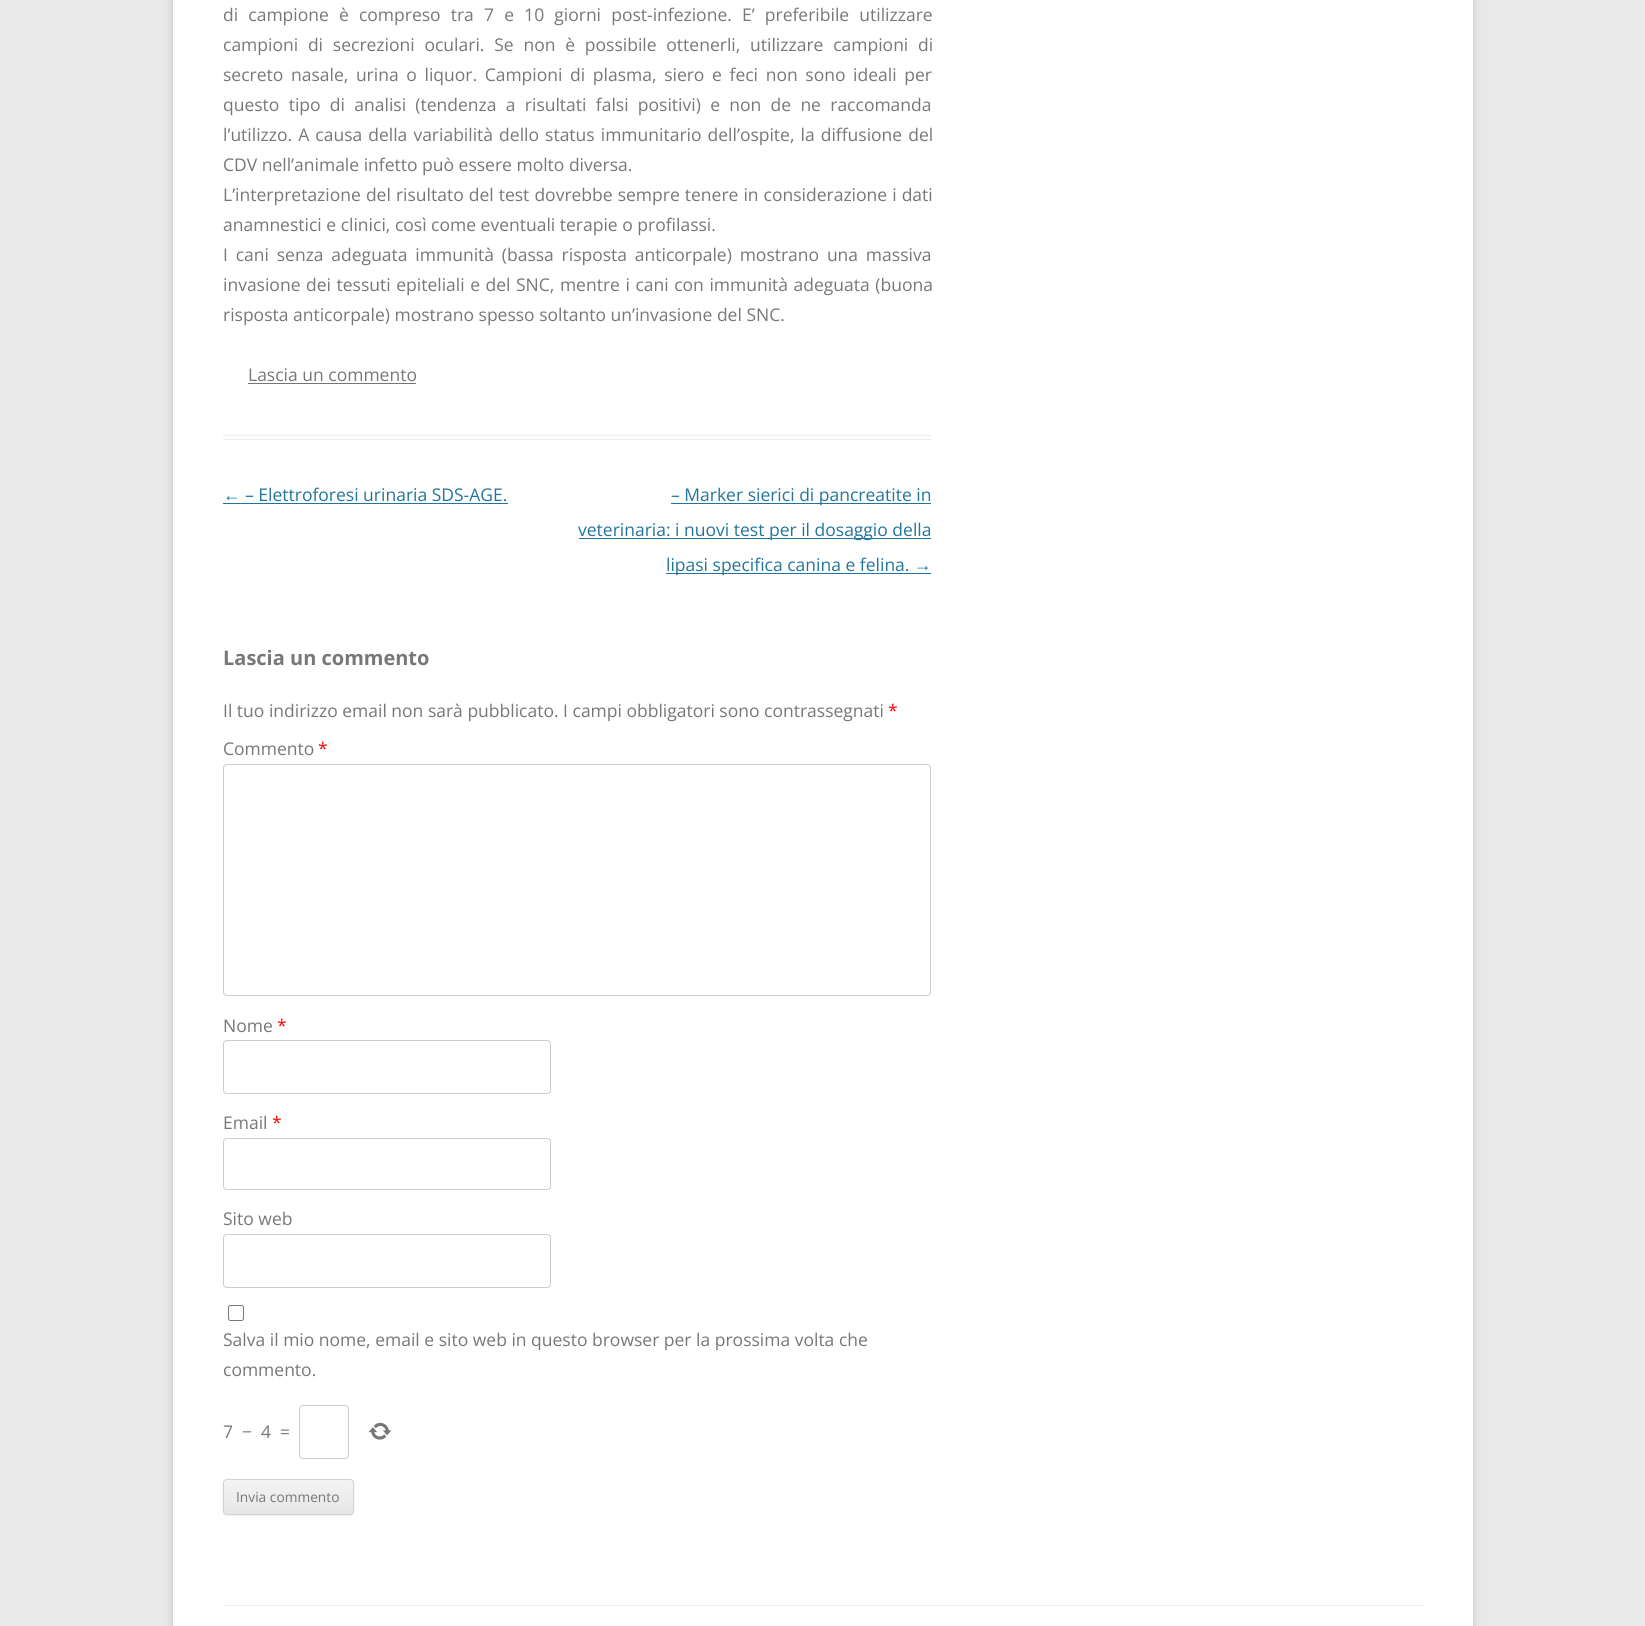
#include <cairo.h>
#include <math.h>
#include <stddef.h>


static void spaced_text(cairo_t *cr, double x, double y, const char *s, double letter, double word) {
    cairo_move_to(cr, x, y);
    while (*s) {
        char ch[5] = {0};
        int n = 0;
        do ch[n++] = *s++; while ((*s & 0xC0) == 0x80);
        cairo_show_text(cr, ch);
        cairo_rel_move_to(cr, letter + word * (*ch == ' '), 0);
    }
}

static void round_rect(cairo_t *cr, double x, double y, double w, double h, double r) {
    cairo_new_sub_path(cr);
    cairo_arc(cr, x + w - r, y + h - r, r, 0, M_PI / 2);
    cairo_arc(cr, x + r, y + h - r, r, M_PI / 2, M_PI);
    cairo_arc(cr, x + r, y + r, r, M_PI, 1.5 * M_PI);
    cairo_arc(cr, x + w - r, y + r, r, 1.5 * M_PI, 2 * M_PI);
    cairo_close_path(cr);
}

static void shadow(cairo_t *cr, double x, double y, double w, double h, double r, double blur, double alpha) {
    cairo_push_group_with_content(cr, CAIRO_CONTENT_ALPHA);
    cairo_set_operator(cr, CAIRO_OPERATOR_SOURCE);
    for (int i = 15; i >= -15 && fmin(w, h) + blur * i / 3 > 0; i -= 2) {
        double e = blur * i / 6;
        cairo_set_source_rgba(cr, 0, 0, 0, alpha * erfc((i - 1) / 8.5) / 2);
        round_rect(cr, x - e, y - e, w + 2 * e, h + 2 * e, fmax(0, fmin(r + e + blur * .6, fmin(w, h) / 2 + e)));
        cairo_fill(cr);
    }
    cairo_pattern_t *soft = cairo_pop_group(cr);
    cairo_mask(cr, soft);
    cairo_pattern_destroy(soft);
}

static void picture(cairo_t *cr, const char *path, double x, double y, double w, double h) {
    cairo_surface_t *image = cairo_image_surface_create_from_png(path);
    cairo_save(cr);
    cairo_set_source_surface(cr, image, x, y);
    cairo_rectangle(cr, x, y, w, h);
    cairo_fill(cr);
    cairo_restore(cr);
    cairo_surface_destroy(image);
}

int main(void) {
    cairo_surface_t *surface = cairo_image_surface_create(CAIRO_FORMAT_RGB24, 1645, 1626);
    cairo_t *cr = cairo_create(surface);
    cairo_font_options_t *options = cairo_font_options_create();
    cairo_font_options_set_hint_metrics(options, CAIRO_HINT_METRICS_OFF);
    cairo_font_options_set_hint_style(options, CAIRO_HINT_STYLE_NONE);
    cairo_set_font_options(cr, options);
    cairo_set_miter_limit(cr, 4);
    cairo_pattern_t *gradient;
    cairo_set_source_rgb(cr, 0.914, 0.914, 0.914);
    cairo_paint(cr);
    cairo_set_source_rgb(cr, 0.392, 0.392, 0.392);
    shadow(cr, 173, -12, 1300, 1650, 0, 4, 0.3);
    cairo_set_source_rgb(cr, 1, 1, 1);
    cairo_rectangle(cr, 173, 0, 1300, 1626);
    cairo_fill(cr);
    cairo_set_source_rgb(cr, 0.929, 0.929, 0.929);
    cairo_rectangle(cr, 223, 435, 708, 1);
    cairo_fill(cr);
    cairo_rectangle(cr, 223, 439, 708, 1);
    cairo_fill(cr);
    cairo_select_font_face(cr, "Open Sans", CAIRO_FONT_SLANT_NORMAL, CAIRO_FONT_WEIGHT_NORMAL);
    cairo_set_font_size(cr, 17.5);
    cairo_set_source_rgb(cr, 0.467, 0.467, 0.467);
    spaced_text(cr, 223, 21, "di campione è compreso tra 7 e 10 giorni post-infezione. E’ preferibile utilizzare", 0, 5.6);
    spaced_text(cr, 223, 51, "campioni di secrezioni oculari. Se non è possibile ottenerli, utilizzare campioni di", 0, 5.25);
    spaced_text(cr, 223, 81, "secreto nasale, urina o liquor. Campioni di plasma, siero e feci non sono ideali per", 0, 3.1);
    spaced_text(cr, 223, 111, "questo tipo di analisi (tendenza a risultati falsi positivi) e non de ne raccomanda", 0, 4.75);
    spaced_text(cr, 223, 141, "l’utilizzo. A causa della variabilità dello status immunitario dell’ospite, la diffusione del", 0, 1.5);
    cairo_move_to(cr, 223, 171);
    cairo_show_text(cr, "CDV nell’animale infetto può essere molto diversa.");
    spaced_text(cr, 223, 201, "L’interpretazione del risultato del test dovrebbe sempre tenere in considerazione i dati", 0, 0.5);
    cairo_move_to(cr, 223, 231);
    cairo_show_text(cr, "anamnestici e clinici, così come eventuali terapie o profilassi.");
    spaced_text(cr, 223, 261, "I cani senza adeguata immunità (bassa risposta anticorpale) mostrano una massiva", 0, 3.25);
    spaced_text(cr, 223, 291, "invasione dei tessuti epiteliali e del SNC, mentre i cani con immunità adeguata (buona", 0, 1);
    cairo_move_to(cr, 223, 321);
    cairo_show_text(cr, "risposta anticorpale) mostrano spesso soltanto un’invasione del SNC.");
    cairo_move_to(cr, 248, 381);
    cairo_show_text(cr, "Lascia un commento");
    cairo_set_source_rgb(cr, 0.459, 0.459, 0.459);
    cairo_rectangle(cr, 248, 383, 168, 1);
    cairo_fill(cr);
    cairo_select_font_face(cr, "Liberation Sans", CAIRO_FONT_SLANT_NORMAL, CAIRO_FONT_WEIGHT_NORMAL);
    cairo_set_source_rgb(cr, 0.129, 0.459, 0.608);
    cairo_move_to(cr, 223, 501);
    cairo_show_text(cr, "←");
    cairo_rectangle(cr, 223, 503, 285, 1);
    cairo_fill(cr);
    cairo_select_font_face(cr, "Open Sans", CAIRO_FONT_SLANT_NORMAL, CAIRO_FONT_WEIGHT_NORMAL);
    cairo_move_to(cr, 245, 501);
    cairo_show_text(cr, "– Elettroforesi urinaria SDS-AGE.");
    cairo_rectangle(cr, 671, 503, 260, 1);
    cairo_fill(cr);
    cairo_move_to(cr, 671, 501);
    cairo_show_text(cr, "– Marker sierici di pancreatite in");
    cairo_rectangle(cr, 579, 538, 352, 1);
    cairo_fill(cr);
    cairo_move_to(cr, 578, 536);
    cairo_show_text(cr, "veterinaria: i nuovi test per il dosaggio della");
    cairo_rectangle(cr, 666, 573, 265, 1);
    cairo_fill(cr);
    cairo_move_to(cr, 666, 571);
    cairo_show_text(cr, "lipasi specifica canina e felina.");
    cairo_select_font_face(cr, "Liberation Sans", CAIRO_FONT_SLANT_NORMAL, CAIRO_FONT_WEIGHT_NORMAL);
    cairo_move_to(cr, 914, 571);
    cairo_show_text(cr, "→");
    cairo_select_font_face(cr, "Open Sans", CAIRO_FONT_SLANT_NORMAL, CAIRO_FONT_WEIGHT_BOLD);
    cairo_set_font_size(cr, 20);
    cairo_set_source_rgb(cr, 0.467, 0.467, 0.467);
    cairo_move_to(cr, 223, 665);
    cairo_show_text(cr, "Lascia un commento");
    cairo_select_font_face(cr, "Open Sans", CAIRO_FONT_SLANT_NORMAL, CAIRO_FONT_WEIGHT_NORMAL);
    cairo_set_font_size(cr, 17.5);
    cairo_move_to(cr, 223, 717);
    cairo_show_text(cr, "Il tuo indirizzo email non sarà pubblicato. I campi obbligatori sono contrassegnati");
    cairo_set_source_rgb(cr, 1, 0, 0);
    cairo_move_to(cr, 888, 717);
    cairo_show_text(cr, "*");
    cairo_set_source_rgb(cr, 0.467, 0.467, 0.467);
    cairo_move_to(cr, 223, 755);
    cairo_show_text(cr, "Commento");
    cairo_set_source_rgb(cr, 1, 0, 0);
    cairo_move_to(cr, 318, 755);
    cairo_show_text(cr, "*");
    round_rect(cr, 223.5, 764.5, 707, 231, 3.5);
    cairo_set_source_rgb(cr, 0.8, 0.8, 0.8);
    cairo_set_line_width(cr, 1);
    cairo_stroke(cr);
    cairo_set_source_rgb(cr, 0.467, 0.467, 0.467);
    cairo_move_to(cr, 223, 1032);
    cairo_show_text(cr, "Nome");
    cairo_set_source_rgb(cr, 1, 0, 0);
    cairo_move_to(cr, 277, 1032);
    cairo_show_text(cr, "*");
    round_rect(cr, 223.5, 1040.5, 327, 53, 3.5);
    cairo_set_source_rgb(cr, 0.8, 0.8, 0.8);
    cairo_stroke(cr);
    cairo_set_source_rgb(cr, 0.467, 0.467, 0.467);
    cairo_move_to(cr, 223, 1129);
    cairo_show_text(cr, "Email");
    cairo_set_source_rgb(cr, 1, 0, 0);
    cairo_move_to(cr, 272, 1129);
    cairo_show_text(cr, "*");
    round_rect(cr, 223.5, 1138.5, 327, 51, 3.5);
    cairo_set_source_rgb(cr, 0.8, 0.8, 0.8);
    cairo_stroke(cr);
    cairo_set_source_rgb(cr, 0.467, 0.467, 0.467);
    cairo_move_to(cr, 223, 1225);
    cairo_show_text(cr, "Sito web");
    round_rect(cr, 223.5, 1234.5, 327, 53, 3.5);
    cairo_set_source_rgb(cr, 0.8, 0.8, 0.8);
    cairo_stroke(cr);
    round_rect(cr, 228.5, 1305.5, 15, 15, 2);
    cairo_set_source_rgb(cr, 0.463, 0.463, 0.463);
    cairo_stroke(cr);
    cairo_set_source_rgb(cr, 0.467, 0.467, 0.467);
    cairo_move_to(cr, 223, 1346);
    cairo_show_text(cr, "Salva il mio nome, email e sito web in questo browser per la prossima volta che");
    cairo_move_to(cr, 223, 1376);
    cairo_show_text(cr, "commento.");
    cairo_move_to(cr, 223, 1438);
    cairo_show_text(cr, "7");
    cairo_move_to(cr, 242, 1438);
    cairo_show_text(cr, "−");
    cairo_move_to(cr, 261, 1438);
    cairo_show_text(cr, "4");
    cairo_move_to(cr, 280, 1438);
    cairo_show_text(cr, "=");
    round_rect(cr, 299.5, 1405.5, 49, 53, 3.5);
    cairo_set_source_rgb(cr, 0.8, 0.8, 0.8);
    cairo_stroke(cr);
    picture(cr, "img1.png", 368, 1422, 24, 18);
    cairo_set_source_rgb(cr, 0.251, 0.251, 0.251);
    shadow(cr, 223, 1480, 131, 36, 4, 1, 0.1);
    cairo_save(cr);
    round_rect(cr, 223, 1479, 131, 36, 4);
    cairo_clip(cr);
    gradient = cairo_pattern_create_linear(288, 1480, 288, 1514);
    cairo_pattern_add_color_stop_rgba(gradient, 0, 0.957, 0.957, 0.957, 1);
    cairo_pattern_add_color_stop_rgba(gradient, 1, 0.902, 0.902, 0.902, 1);
    cairo_set_source(cr, gradient);
    cairo_pattern_destroy(gradient);
    cairo_rectangle(cr, 223, 1480, 131, 34);
    cairo_fill(cr);
    cairo_restore(cr);
    round_rect(cr, 223.5, 1479.5, 130, 35, 3.5);
    cairo_set_source_rgb(cr, 0.824, 0.824, 0.824);
    cairo_stroke(cr);
    cairo_set_font_size(cr, 13.75);
    cairo_set_source_rgb(cr, 0.467, 0.467, 0.467);
    cairo_move_to(cr, 236, 1502);
    cairo_show_text(cr, "Invia commento");
    cairo_set_source_rgb(cr, 0.929, 0.929, 0.929);
    cairo_rectangle(cr, 223, 1605, 1200, 1);
    cairo_fill(cr);
    cairo_surface_write_to_png(surface, "page.png");
    cairo_font_options_destroy(options);
    cairo_destroy(cr);
    cairo_surface_destroy(surface);
    return 0;
}
